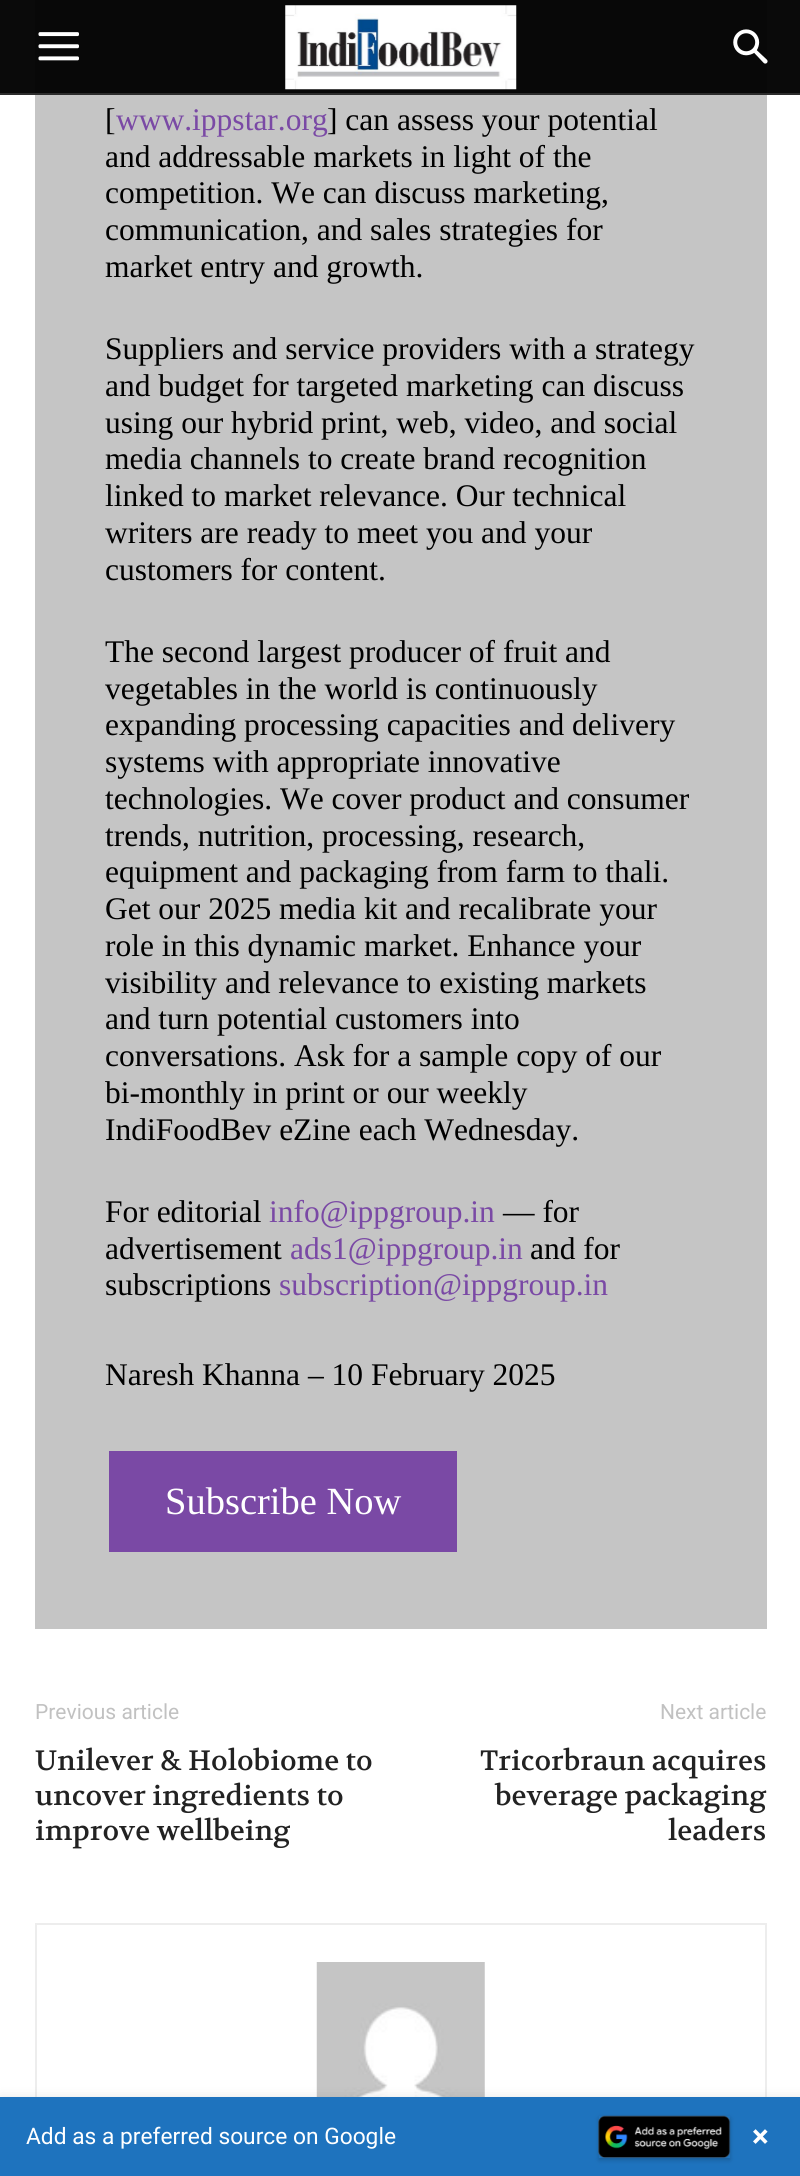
#include <cairo.h>
#include <math.h>
#include <stddef.h>


static void round_rect(cairo_t *cr, double x, double y, double w, double h, double r) {
    cairo_new_sub_path(cr);
    cairo_arc(cr, x + w - r, y + h - r, r, 0, M_PI / 2);
    cairo_arc(cr, x + r, y + h - r, r, M_PI / 2, M_PI);
    cairo_arc(cr, x + r, y + r, r, M_PI, 1.5 * M_PI);
    cairo_arc(cr, x + w - r, y + r, r, 1.5 * M_PI, 2 * M_PI);
    cairo_close_path(cr);
}

static void shadow(cairo_t *cr, double x, double y, double w, double h, double r, double blur, double alpha) {
    cairo_push_group_with_content(cr, CAIRO_CONTENT_ALPHA);
    cairo_set_operator(cr, CAIRO_OPERATOR_SOURCE);
    for (int i = 15; i >= -15 && fmin(w, h) + blur * i / 3 > 0; i -= 2) {
        double e = blur * i / 6;
        cairo_set_source_rgba(cr, 0, 0, 0, alpha * erfc((i - 1) / 8.5) / 2);
        round_rect(cr, x - e, y - e, w + 2 * e, h + 2 * e, fmax(0, fmin(r + e + blur * .6, fmin(w, h) / 2 + e)));
        cairo_fill(cr);
    }
    cairo_pattern_t *soft = cairo_pop_group(cr);
    cairo_mask(cr, soft);
    cairo_pattern_destroy(soft);
}

static void picture(cairo_t *cr, const char *path, double x, double y, double w, double h) {
    cairo_surface_t *image = cairo_image_surface_create_from_png(path);
    cairo_save(cr);
    cairo_set_source_surface(cr, image, x, y);
    cairo_rectangle(cr, x, y, w, h);
    cairo_fill(cr);
    cairo_restore(cr);
    cairo_surface_destroy(image);
}

int main(void) {
    cairo_surface_t *surface = cairo_image_surface_create(CAIRO_FORMAT_RGB24, 800, 2176);
    cairo_t *cr = cairo_create(surface);
    cairo_font_options_t *options = cairo_font_options_create();
    cairo_font_options_set_hint_metrics(options, CAIRO_HINT_METRICS_OFF);
    cairo_font_options_set_hint_style(options, CAIRO_HINT_STYLE_NONE);
    cairo_set_font_options(cr, options);
    cairo_set_miter_limit(cr, 4);
    cairo_set_source_rgb(cr, 1, 1, 1);
    cairo_paint(cr);
    cairo_set_source_rgb(cr, 0.773, 0.773, 0.773);
    cairo_rectangle(cr, 35, 0, 732, 1629);
    cairo_fill(cr);
    cairo_set_source_rgba(cr, 0, 0, 0, 0.8);
    cairo_rectangle(cr, 0, 0, 800, 93);
    cairo_fill(cr);
    cairo_set_source_rgb(cr, 0.867, 0.867, 0.867);
    cairo_rectangle(cr, 0, 93, 800, 2);
    cairo_fill(cr);
    cairo_set_source_rgba(cr, 0, 0, 0, 0.8);
    cairo_rectangle(cr, 0, 0, 800, 95);
    cairo_fill(cr);
    picture(cr, "img1.png", 38, 32, 41, 29);
    picture(cr, "img2.png", 285, 5, 232, 85);
    picture(cr, "img3.png", 733, 29, 35, 35);
    cairo_select_font_face(cr, "Liberation Serif", CAIRO_FONT_SLANT_NORMAL, CAIRO_FONT_WEIGHT_NORMAL);
    cairo_set_font_size(cr, 31.5);
    cairo_set_source_rgb(cr, 0, 0, 0);
    cairo_move_to(cr, 105, 130);
    cairo_show_text(cr, "[");
    cairo_set_source_rgb(cr, 0.478, 0.286, 0.647);
    cairo_move_to(cr, 116, 130);
    cairo_show_text(cr, "www.ippstar.org");
    cairo_set_source_rgb(cr, 0, 0, 0);
    cairo_move_to(cr, 327, 130);
    cairo_show_text(cr, "] can assess your potential");
    cairo_move_to(cr, 105, 167);
    cairo_show_text(cr, "and addressable markets in light of the");
    cairo_move_to(cr, 105, 203);
    cairo_show_text(cr, "competition. We can discuss marketing,");
    cairo_move_to(cr, 105, 240);
    cairo_show_text(cr, "communication, and sales strategies for");
    cairo_move_to(cr, 105, 277);
    cairo_show_text(cr, "market entry and growth.");
    cairo_move_to(cr, 105, 359);
    cairo_show_text(cr, "Suppliers and service providers with a strategy");
    cairo_move_to(cr, 105, 396);
    cairo_show_text(cr, "and budget for targeted marketing can discuss");
    cairo_move_to(cr, 105, 433);
    cairo_show_text(cr, "using our hybrid print, web, video, and social");
    cairo_move_to(cr, 105, 469);
    cairo_show_text(cr, "media channels to create brand recognition");
    cairo_move_to(cr, 105, 506);
    cairo_show_text(cr, "linked to market relevance. Our technical");
    cairo_move_to(cr, 105, 543);
    cairo_show_text(cr, "writers are ready to meet you and your");
    cairo_move_to(cr, 105, 580);
    cairo_show_text(cr, "customers for content.");
    cairo_move_to(cr, 105, 662);
    cairo_show_text(cr, "The second largest producer of fruit and");
    cairo_move_to(cr, 105, 699);
    cairo_show_text(cr, "vegetables in the world is continuously");
    cairo_move_to(cr, 105, 735);
    cairo_show_text(cr, "expanding processing capacities and delivery");
    cairo_move_to(cr, 105, 772);
    cairo_show_text(cr, "systems with appropriate innovative");
    cairo_move_to(cr, 105, 809);
    cairo_show_text(cr, "technologies. We cover product and consumer");
    cairo_move_to(cr, 105, 846);
    cairo_show_text(cr, "trends, nutrition, processing, research,");
    cairo_move_to(cr, 105, 882);
    cairo_show_text(cr, "equipment and packaging from farm to thali.");
    cairo_move_to(cr, 105, 919);
    cairo_show_text(cr, "Get our 2025 media kit and recalibrate your");
    cairo_move_to(cr, 105, 956);
    cairo_show_text(cr, "role in this dynamic market. Enhance your");
    cairo_move_to(cr, 105, 993);
    cairo_show_text(cr, "visibility and relevance to existing markets");
    cairo_move_to(cr, 105, 1029);
    cairo_show_text(cr, "and turn potential customers into");
    cairo_move_to(cr, 105, 1066);
    cairo_show_text(cr, "conversations. Ask for a sample copy of our");
    cairo_move_to(cr, 105, 1103);
    cairo_show_text(cr, "bi-monthly in print or our weekly");
    cairo_move_to(cr, 105, 1140);
    cairo_show_text(cr, "IndiFoodBev eZine each Wednesday.");
    cairo_move_to(cr, 105, 1222);
    cairo_show_text(cr, "For editorial");
    cairo_set_source_rgb(cr, 0.478, 0.286, 0.647);
    cairo_move_to(cr, 269, 1222);
    cairo_show_text(cr, "info@ippgroup.in");
    cairo_set_source_rgb(cr, 0, 0, 0);
    cairo_move_to(cr, 503, 1222);
    cairo_show_text(cr, "— for");
    cairo_move_to(cr, 105, 1259);
    cairo_show_text(cr, "advertisement");
    cairo_set_source_rgb(cr, 0.478, 0.286, 0.647);
    cairo_move_to(cr, 290, 1259);
    cairo_show_text(cr, "ads1@ippgroup.in");
    cairo_set_source_rgb(cr, 0, 0, 0);
    cairo_move_to(cr, 530, 1259);
    cairo_show_text(cr, "and for");
    cairo_move_to(cr, 105, 1295);
    cairo_show_text(cr, "subscriptions");
    cairo_set_source_rgb(cr, 0.478, 0.286, 0.647);
    cairo_move_to(cr, 279, 1295);
    cairo_show_text(cr, "subscription@ippgroup.in");
    cairo_set_source_rgb(cr, 0, 0, 0);
    cairo_move_to(cr, 105, 1385);
    cairo_show_text(cr, "Naresh Khanna – 10 February 2025");
    cairo_set_source_rgb(cr, 0.478, 0.286, 0.647);
    cairo_rectangle(cr, 109, 1451, 348, 101);
    cairo_fill(cr);
    cairo_set_font_size(cr, 38.5);
    cairo_set_source_rgb(cr, 1, 1, 1);
    cairo_move_to(cr, 165, 1514);
    cairo_show_text(cr, "Subscribe Now");
    cairo_select_font_face(cr, "Roboto", CAIRO_FONT_SLANT_NORMAL, CAIRO_FONT_WEIGHT_NORMAL);
    cairo_set_font_size(cr, 21);
    cairo_set_source_rgb(cr, 0.757, 0.757, 0.757);
    cairo_move_to(cr, 35, 1719);
    cairo_show_text(cr, "Previous article");
    cairo_select_font_face(cr, "Volkhov", CAIRO_FONT_SLANT_NORMAL, CAIRO_FONT_WEIGHT_NORMAL);
    cairo_set_font_size(cr, 28);
    cairo_set_source_rgb(cr, 0.133, 0.133, 0.133);
    cairo_move_to(cr, 35, 1770);
    cairo_show_text(cr, "Unilever & Holobiome to");
    cairo_move_to(cr, 35, 1805);
    cairo_show_text(cr, "uncover ingredients to");
    cairo_move_to(cr, 35, 1840);
    cairo_show_text(cr, "improve wellbeing");
    cairo_select_font_face(cr, "Roboto", CAIRO_FONT_SLANT_NORMAL, CAIRO_FONT_WEIGHT_NORMAL);
    cairo_set_font_size(cr, 21);
    cairo_set_source_rgb(cr, 0.757, 0.757, 0.757);
    cairo_move_to(cr, 660, 1719);
    cairo_show_text(cr, "Next article");
    cairo_select_font_face(cr, "Volkhov", CAIRO_FONT_SLANT_NORMAL, CAIRO_FONT_WEIGHT_NORMAL);
    cairo_set_font_size(cr, 28);
    cairo_set_source_rgb(cr, 0.133, 0.133, 0.133);
    cairo_move_to(cr, 480, 1770);
    cairo_show_text(cr, "Tricorbraun acquires");
    cairo_move_to(cr, 495, 1805);
    cairo_show_text(cr, "beverage packaging");
    cairo_move_to(cr, 668, 1840);
    cairo_show_text(cr, "leaders");
    cairo_rectangle(cr, 36, 1924, 730, 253);
    cairo_set_source_rgb(cr, 0.929, 0.929, 0.929);
    cairo_stroke(cr);
    picture(cr, "img4.png", 316, 1962, 169, 135);
    cairo_set_source_rgb(cr, 0, 0, 0);
    shadow(cr, 0, 2100, 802, 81, 0, 7, 0.15);
    cairo_set_source_rgb(cr, 0.118, 0.451, 0.745);
    cairo_rectangle(cr, 0, 2097, 800, 79);
    cairo_fill(cr);
    cairo_select_font_face(cr, "Roboto", CAIRO_FONT_SLANT_NORMAL, CAIRO_FONT_WEIGHT_NORMAL);
    cairo_set_font_size(cr, 22.75);
    cairo_set_source_rgb(cr, 1, 1, 1);
    cairo_move_to(cr, 26, 2144);
    cairo_show_text(cr, "Add as a preferred source on Google");
    cairo_save(cr);
    cairo_set_fill_rule(cr, CAIRO_FILL_RULE_EVEN_ODD);
    cairo_new_path(cr);
    cairo_move_to(cr, 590, 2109);
    cairo_line_to(cr, 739, 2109);
    cairo_line_to(cr, 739, 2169);
    cairo_line_to(cr, 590, 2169);
    cairo_close_path(cr);
    cairo_move_to(cr, 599, 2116);
    cairo_line_to(cr, 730, 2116);
    cairo_line_to(cr, 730, 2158);
    cairo_line_to(cr, 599, 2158);
    cairo_close_path(cr);
    cairo_clip(cr);
    cairo_set_source_rgb(cr, 0, 0, 0);
    shadow(cr, 599, 2118, 131, 42, 0, 2.5, 0.2);
    cairo_restore(cr);
    picture(cr, "img5.png", 598, 2115, 133, 43);
    cairo_select_font_face(cr, "Roboto", CAIRO_FONT_SLANT_NORMAL, CAIRO_FONT_WEIGHT_BOLD);
    cairo_set_font_size(cr, 31.5);
    cairo_move_to(cr, 752, 2147);
    cairo_show_text(cr, "×");
    cairo_surface_write_to_png(surface, "page.png");
    cairo_font_options_destroy(options);
    cairo_destroy(cr);
    cairo_surface_destroy(surface);
    return 0;
}
